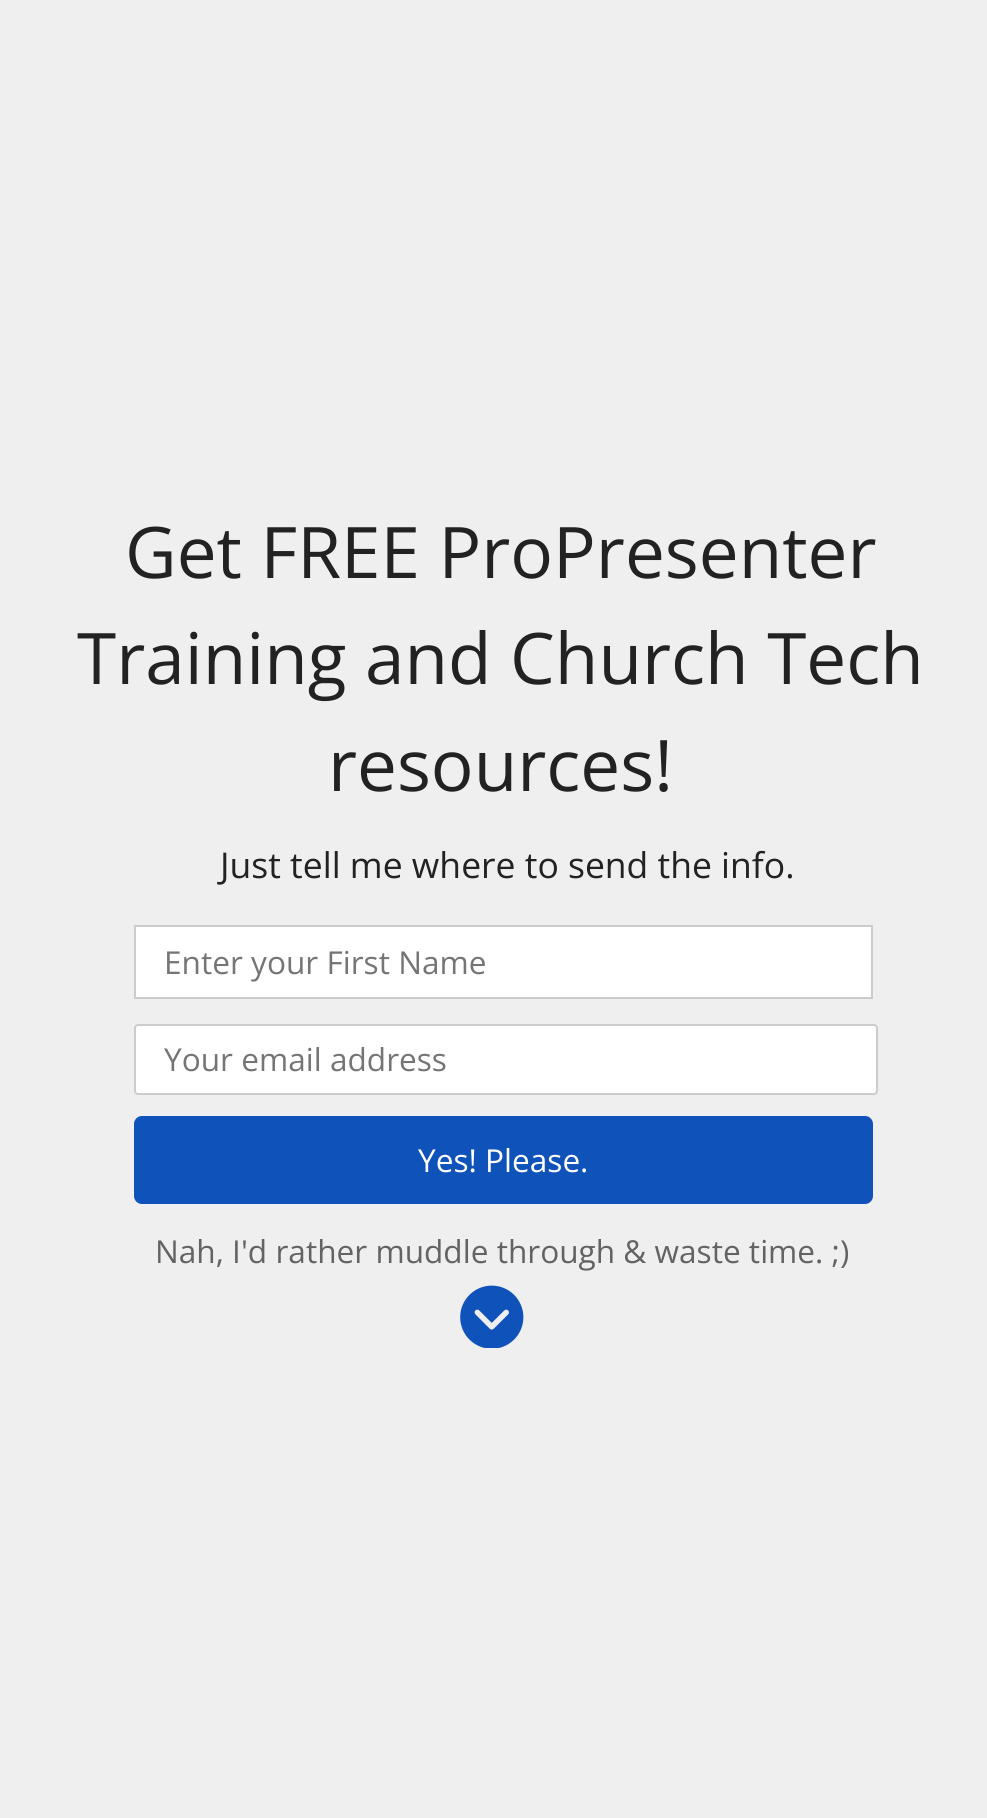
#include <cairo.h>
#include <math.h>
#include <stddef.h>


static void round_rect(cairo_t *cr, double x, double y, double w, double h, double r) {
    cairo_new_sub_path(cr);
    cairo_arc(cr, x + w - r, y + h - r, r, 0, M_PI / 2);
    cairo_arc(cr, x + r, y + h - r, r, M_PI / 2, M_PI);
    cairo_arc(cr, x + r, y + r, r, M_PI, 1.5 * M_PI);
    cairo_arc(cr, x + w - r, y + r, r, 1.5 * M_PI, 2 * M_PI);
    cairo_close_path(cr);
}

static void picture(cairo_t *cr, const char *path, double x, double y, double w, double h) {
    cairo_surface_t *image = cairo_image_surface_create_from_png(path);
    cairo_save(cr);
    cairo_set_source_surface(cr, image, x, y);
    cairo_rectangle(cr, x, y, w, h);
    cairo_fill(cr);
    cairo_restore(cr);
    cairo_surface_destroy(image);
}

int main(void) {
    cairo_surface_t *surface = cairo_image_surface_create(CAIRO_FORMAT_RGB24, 987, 1818);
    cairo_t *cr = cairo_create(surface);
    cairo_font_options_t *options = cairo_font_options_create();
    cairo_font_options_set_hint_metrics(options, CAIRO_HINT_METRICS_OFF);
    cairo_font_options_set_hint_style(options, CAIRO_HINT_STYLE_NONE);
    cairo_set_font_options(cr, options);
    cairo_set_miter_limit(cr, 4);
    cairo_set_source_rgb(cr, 0.937, 0.937, 0.937);
    cairo_paint(cr);
    cairo_select_font_face(cr, "Open Sans", CAIRO_FONT_SLANT_NORMAL, CAIRO_FONT_WEIGHT_NORMAL);
    cairo_set_font_size(cr, 71.1);
    cairo_set_source_rgb(cr, 0.133, 0.133, 0.133);
    cairo_move_to(cr, 125, 578);
    cairo_show_text(cr, "Get FREE ProPresenter");
    cairo_move_to(cr, 77, 684);
    cairo_show_text(cr, "Training and Church Tech");
    cairo_move_to(cr, 328, 791);
    cairo_show_text(cr, "resources!");
    cairo_set_font_size(cr, 35.5);
    cairo_move_to(cr, 220, 878);
    cairo_show_text(cr, "Just tell me where to send the info.");
    cairo_set_source_rgb(cr, 1, 1, 1);
    cairo_rectangle(cr, 135, 926, 737, 72);
    cairo_fill_preserve(cr);
    cairo_set_source_rgb(cr, 0.8, 0.8, 0.8);
    cairo_stroke(cr);
    cairo_set_font_size(cr, 31.6);
    cairo_set_source_rgb(cr, 0.459, 0.459, 0.459);
    cairo_move_to(cr, 164, 974);
    cairo_show_text(cr, "Enter your First Name");
    cairo_set_source_rgb(cr, 1, 1, 1);
    round_rect(cr, 135, 1025, 742, 69, 3);
    cairo_fill_preserve(cr);
    cairo_set_source_rgb(cr, 0.8, 0.8, 0.8);
    cairo_stroke(cr);
    cairo_set_source_rgb(cr, 0.459, 0.459, 0.459);
    cairo_move_to(cr, 164, 1071);
    cairo_show_text(cr, "Your email address");
    cairo_set_source_rgb(cr, 0.059, 0.322, 0.729);
    round_rect(cr, 134, 1116, 739, 88, 8);
    cairo_fill(cr);
    cairo_set_source_rgb(cr, 1, 1, 1);
    cairo_move_to(cr, 418, 1172);
    cairo_show_text(cr, "Yes! Please.");
    cairo_set_source_rgb(cr, 0.396, 0.384, 0.384);
    cairo_move_to(cr, 155, 1263);
    cairo_show_text(cr, "Nah, I'd rather muddle through & waste time. ;)");
    picture(cr, "img1.png", 460, 1285, 64, 63);
    cairo_surface_write_to_png(surface, "page.png");
    cairo_font_options_destroy(options);
    cairo_destroy(cr);
    cairo_surface_destroy(surface);
    return 0;
}
